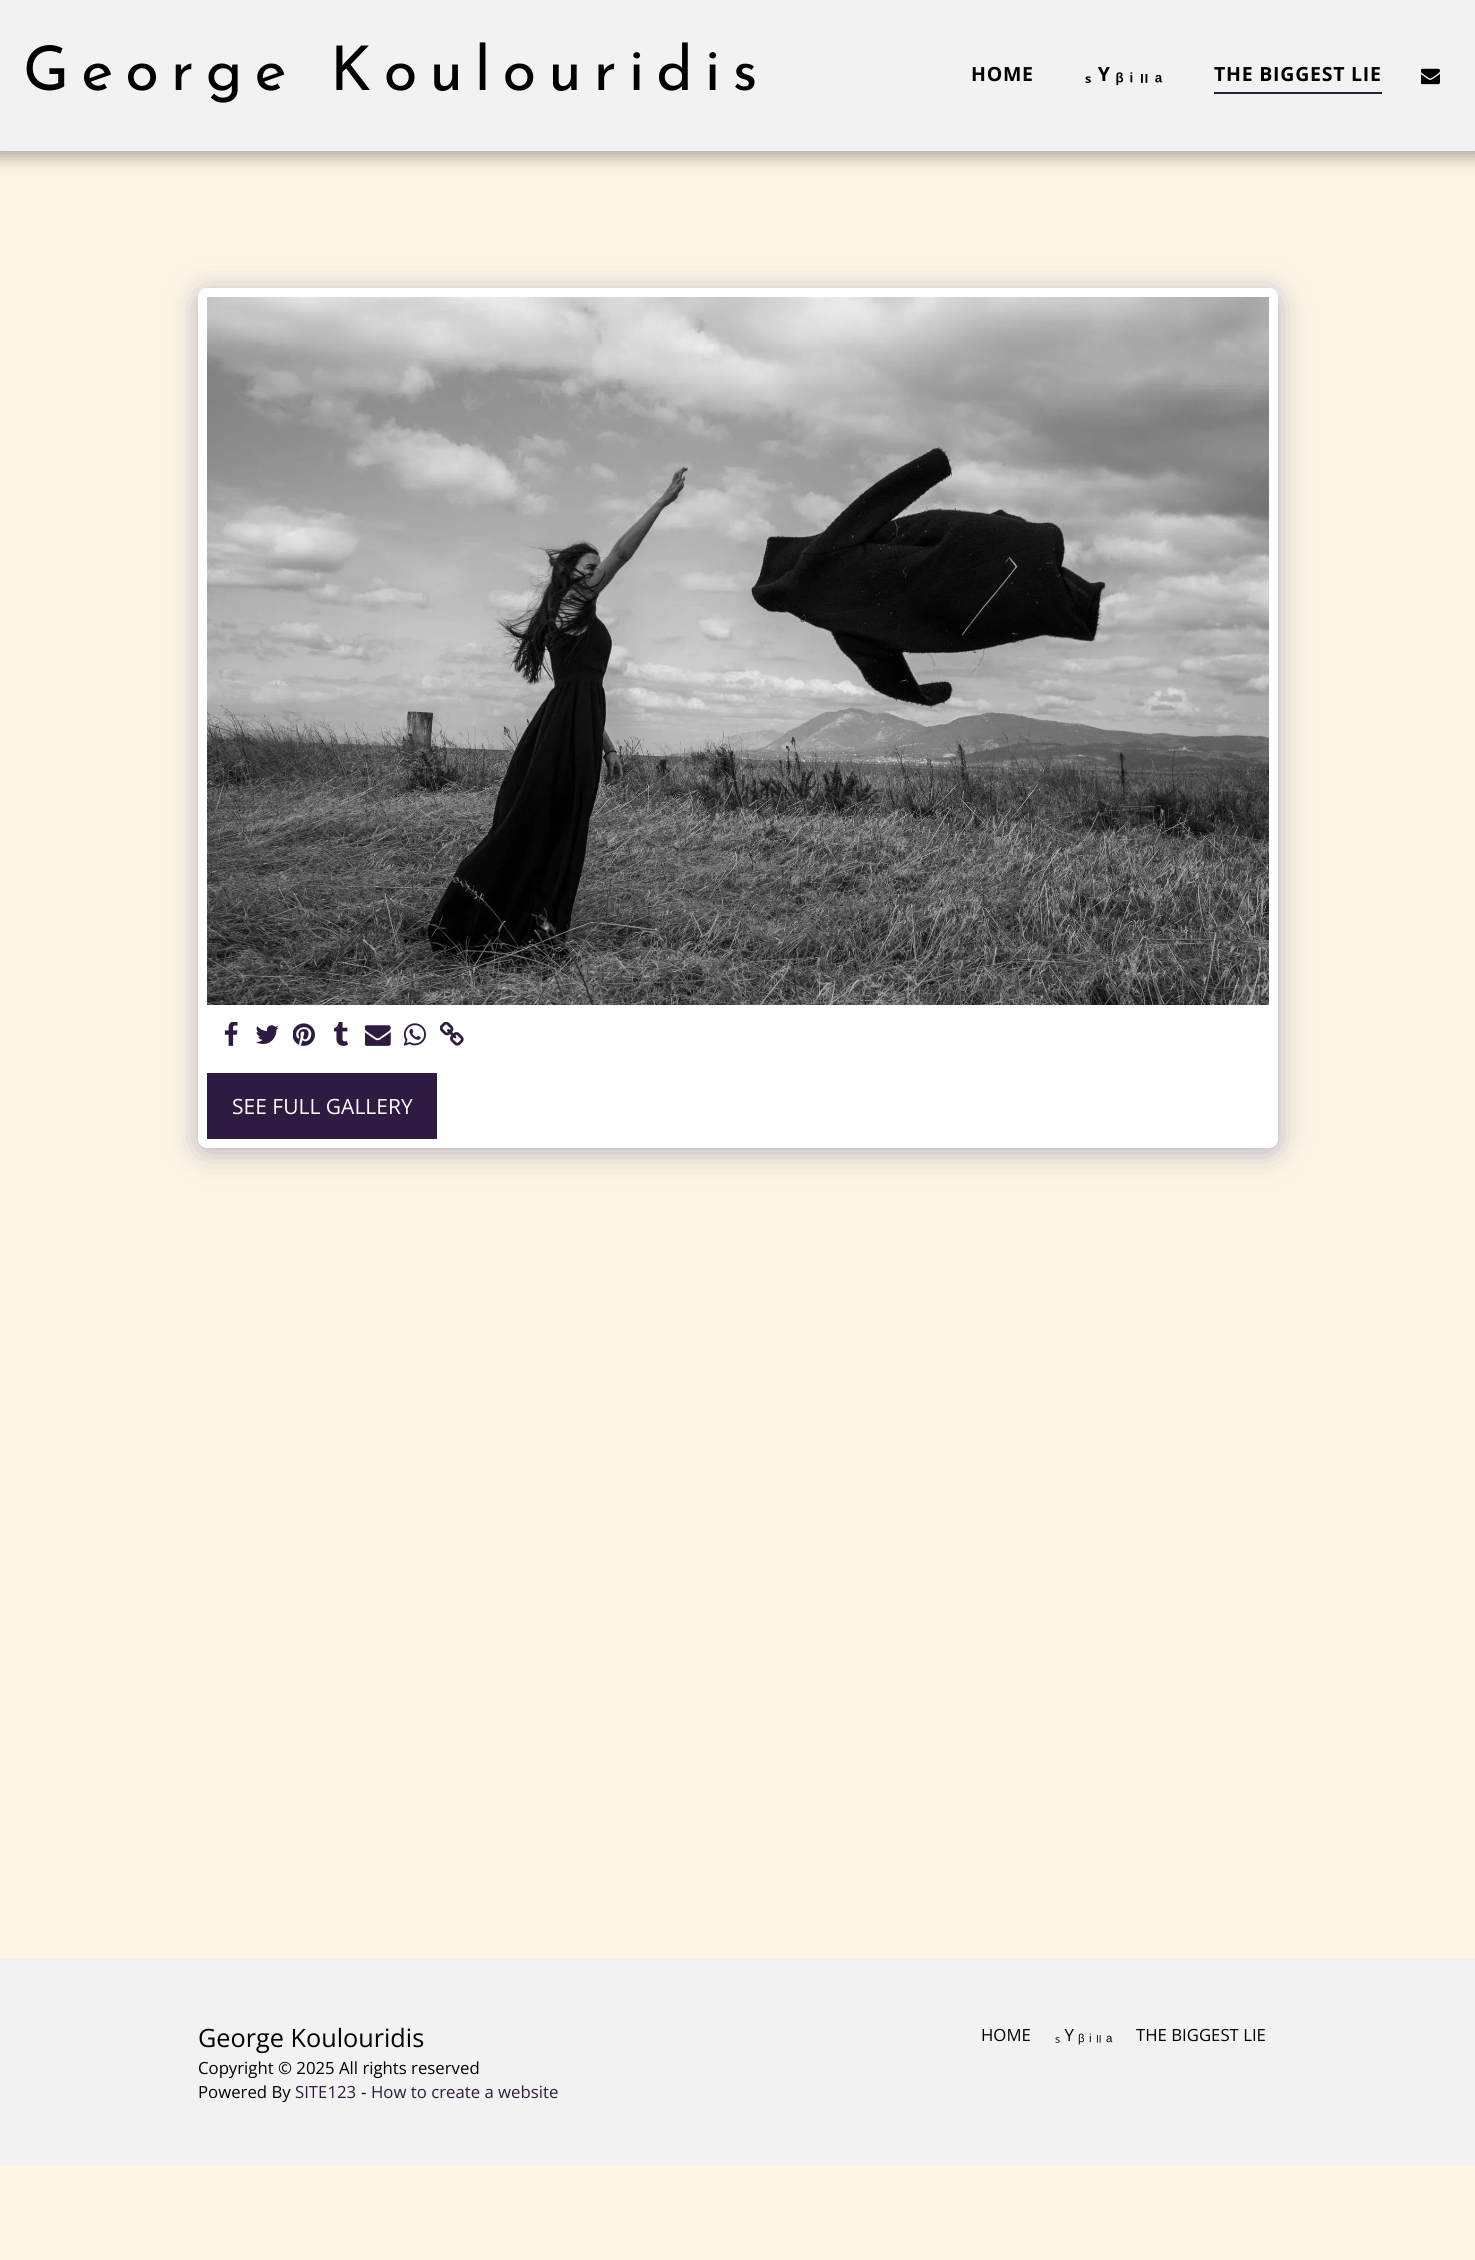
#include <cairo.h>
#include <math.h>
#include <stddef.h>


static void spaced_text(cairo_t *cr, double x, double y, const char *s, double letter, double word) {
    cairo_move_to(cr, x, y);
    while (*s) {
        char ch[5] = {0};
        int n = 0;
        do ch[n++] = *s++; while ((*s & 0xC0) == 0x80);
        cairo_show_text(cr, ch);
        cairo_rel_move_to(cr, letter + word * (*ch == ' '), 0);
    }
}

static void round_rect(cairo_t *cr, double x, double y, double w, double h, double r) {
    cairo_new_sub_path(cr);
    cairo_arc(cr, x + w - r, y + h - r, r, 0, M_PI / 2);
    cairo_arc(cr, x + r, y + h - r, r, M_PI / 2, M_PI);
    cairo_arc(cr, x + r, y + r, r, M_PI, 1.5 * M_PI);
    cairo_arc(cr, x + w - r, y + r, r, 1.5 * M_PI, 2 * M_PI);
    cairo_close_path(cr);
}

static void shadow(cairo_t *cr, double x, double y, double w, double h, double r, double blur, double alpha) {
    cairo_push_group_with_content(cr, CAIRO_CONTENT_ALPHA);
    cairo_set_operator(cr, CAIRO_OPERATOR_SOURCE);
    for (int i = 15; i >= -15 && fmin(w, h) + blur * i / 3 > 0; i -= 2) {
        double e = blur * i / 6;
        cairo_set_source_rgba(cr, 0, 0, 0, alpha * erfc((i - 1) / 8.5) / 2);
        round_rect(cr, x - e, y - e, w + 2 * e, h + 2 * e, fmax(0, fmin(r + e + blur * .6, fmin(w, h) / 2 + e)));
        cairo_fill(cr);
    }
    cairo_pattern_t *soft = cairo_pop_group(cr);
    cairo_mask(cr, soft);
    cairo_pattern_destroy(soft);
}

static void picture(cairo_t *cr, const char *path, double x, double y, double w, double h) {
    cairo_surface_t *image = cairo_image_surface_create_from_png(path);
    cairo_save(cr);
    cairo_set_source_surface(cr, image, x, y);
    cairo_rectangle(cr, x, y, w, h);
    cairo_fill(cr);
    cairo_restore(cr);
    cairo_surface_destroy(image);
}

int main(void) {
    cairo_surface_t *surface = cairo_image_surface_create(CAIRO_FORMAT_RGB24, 1475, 2260);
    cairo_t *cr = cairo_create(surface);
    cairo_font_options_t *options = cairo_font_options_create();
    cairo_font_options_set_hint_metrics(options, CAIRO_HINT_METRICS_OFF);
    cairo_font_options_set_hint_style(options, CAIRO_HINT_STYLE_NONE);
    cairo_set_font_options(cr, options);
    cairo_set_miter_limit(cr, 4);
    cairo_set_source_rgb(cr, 0.992, 0.961, 0.902);
    cairo_paint(cr);
    cairo_set_source_rgb(cr, 0, 0, 0);
    shadow(cr, -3, 0, 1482, 156, 0, 9, 0.35);
    cairo_set_source_rgb(cr, 0.949, 0.949, 0.949);
    cairo_rectangle(cr, 0, 0, 1475, 151);
    cairo_fill(cr);
    cairo_select_font_face(cr, "Josefin Sans", CAIRO_FONT_SLANT_NORMAL, CAIRO_FONT_WEIGHT_NORMAL);
    cairo_set_font_size(cr, 61.5);
    cairo_set_source_rgb(cr, 0, 0, 0);
    spaced_text(cr, 23, 90, "George Koulouridis", 12, 0);
    cairo_select_font_face(cr, "Open Sans", CAIRO_FONT_SLANT_NORMAL, CAIRO_FONT_WEIGHT_BOLD);
    cairo_set_font_size(cr, 19.5);
    spaced_text(cr, 971, 81, "HOME", 0.75, 0);
    spaced_text(cr, 1085, 81, "ₛ Y", 0.75, 0);
    cairo_select_font_face(cr, "Liberation Sans", CAIRO_FONT_SLANT_NORMAL, CAIRO_FONT_WEIGHT_BOLD);
    spaced_text(cr, 1116, 81, "ᵦ", 0.75, 0);
    spaced_text(cr, 1130, 81, "ᵢ", 0.75, 0);
    cairo_select_font_face(cr, "Open Sans", CAIRO_FONT_SLANT_NORMAL, CAIRO_FONT_WEIGHT_BOLD);
    spaced_text(cr, 1140, 81, "ₗₗ", 0.75, 0);
    cairo_select_font_face(cr, "Liberation Sans", CAIRO_FONT_SLANT_NORMAL, CAIRO_FONT_WEIGHT_BOLD);
    spaced_text(cr, 1155, 81, "ₐ", 0.75, 0);
    cairo_select_font_face(cr, "Open Sans", CAIRO_FONT_SLANT_NORMAL, CAIRO_FONT_WEIGHT_BOLD);
    spaced_text(cr, 1214, 81, "THE BIGGEST LIE", 0.75, 0);
    cairo_set_source_rgb(cr, 0.184, 0.106, 0.255);
    cairo_rectangle(cr, 1214, 92, 168, 2);
    cairo_fill(cr);
    picture(cr, "img1.png", 1421, 68, 19, 17);
    cairo_set_source_rgb(cr, 0.302, 0.247, 0.478);
    shadow(cr, 198, 293, 1080, 859, 9, 15, 0.4);
    cairo_set_source_rgb(cr, 1, 1, 1);
    round_rect(cr, 198, 288, 1080, 860, 9);
    cairo_fill(cr);
    picture(cr, "img2.png", 207, 297, 1062, 708);
    picture(cr, "img3.png", 224, 1022, 14, 24);
    picture(cr, "img4.png", 255, 1025, 24, 19);
    picture(cr, "img5.png", 293, 1023, 22, 23);
    picture(cr, "img6.png", 334, 1022, 14, 24);
    picture(cr, "img7.png", 365, 1025, 26, 21);
    picture(cr, "img8.png", 404, 1023, 22, 23);
    picture(cr, "img9.png", 440, 1022, 24, 24);
    cairo_set_source_rgb(cr, 0.184, 0.106, 0.255);
    cairo_rectangle(cr, 207, 1073, 230, 66);
    cairo_fill(cr);
    cairo_select_font_face(cr, "Open Sans", CAIRO_FONT_SLANT_NORMAL, CAIRO_FONT_WEIGHT_NORMAL);
    cairo_set_font_size(cr, 21);
    cairo_set_source_rgb(cr, 1, 1, 1);
    cairo_move_to(cr, 232, 1114);
    cairo_show_text(cr, "SEE FULL GALLERY");
    cairo_set_source_rgb(cr, 0.949, 0.949, 0.949);
    cairo_rectangle(cr, 0, 1959, 1475, 206);
    cairo_fill(cr);
    cairo_set_font_size(cr, 25.25);
    cairo_set_source_rgb(cr, 0, 0, 0);
    cairo_move_to(cr, 198, 2047);
    cairo_show_text(cr, "George Koulouridis");
    cairo_set_font_size(cr, 16.75);
    cairo_move_to(cr, 198, 2074);
    cairo_show_text(cr, "Copyright © 2025 All rights reserved");
    cairo_move_to(cr, 198, 2098);
    cairo_show_text(cr, "Powered By");
    cairo_set_source_rgb(cr, 0.184, 0.106, 0.255);
    cairo_move_to(cr, 295, 2098);
    cairo_show_text(cr, "SITE123");
    cairo_set_source_rgb(cr, 0, 0, 0);
    cairo_move_to(cr, 361, 2098);
    cairo_show_text(cr, "-");
    cairo_set_source_rgb(cr, 0.184, 0.106, 0.255);
    cairo_move_to(cr, 371, 2098);
    cairo_show_text(cr, "How to create a website");
    cairo_set_source_rgb(cr, 0, 0, 0);
    cairo_move_to(cr, 981, 2041);
    cairo_show_text(cr, "HOME");
    cairo_move_to(cr, 1055, 2041);
    cairo_show_text(cr, "ₛ Y");
    cairo_select_font_face(cr, "Liberation Sans", CAIRO_FONT_SLANT_NORMAL, CAIRO_FONT_WEIGHT_NORMAL);
    cairo_move_to(cr, 1078, 2041);
    cairo_show_text(cr, "ᵦ");
    cairo_move_to(cr, 1089, 2041);
    cairo_show_text(cr, "ᵢ");
    cairo_select_font_face(cr, "Open Sans", CAIRO_FONT_SLANT_NORMAL, CAIRO_FONT_WEIGHT_NORMAL);
    cairo_move_to(cr, 1096, 2041);
    cairo_show_text(cr, "ₗₗ");
    cairo_select_font_face(cr, "Liberation Sans", CAIRO_FONT_SLANT_NORMAL, CAIRO_FONT_WEIGHT_NORMAL);
    cairo_move_to(cr, 1106, 2041);
    cairo_show_text(cr, "ₐ");
    cairo_select_font_face(cr, "Open Sans", CAIRO_FONT_SLANT_NORMAL, CAIRO_FONT_WEIGHT_NORMAL);
    cairo_move_to(cr, 1136, 2041);
    cairo_show_text(cr, "THE BIGGEST LIE");
    cairo_surface_write_to_png(surface, "page.png");
    cairo_font_options_destroy(options);
    cairo_destroy(cr);
    cairo_surface_destroy(surface);
    return 0;
}
